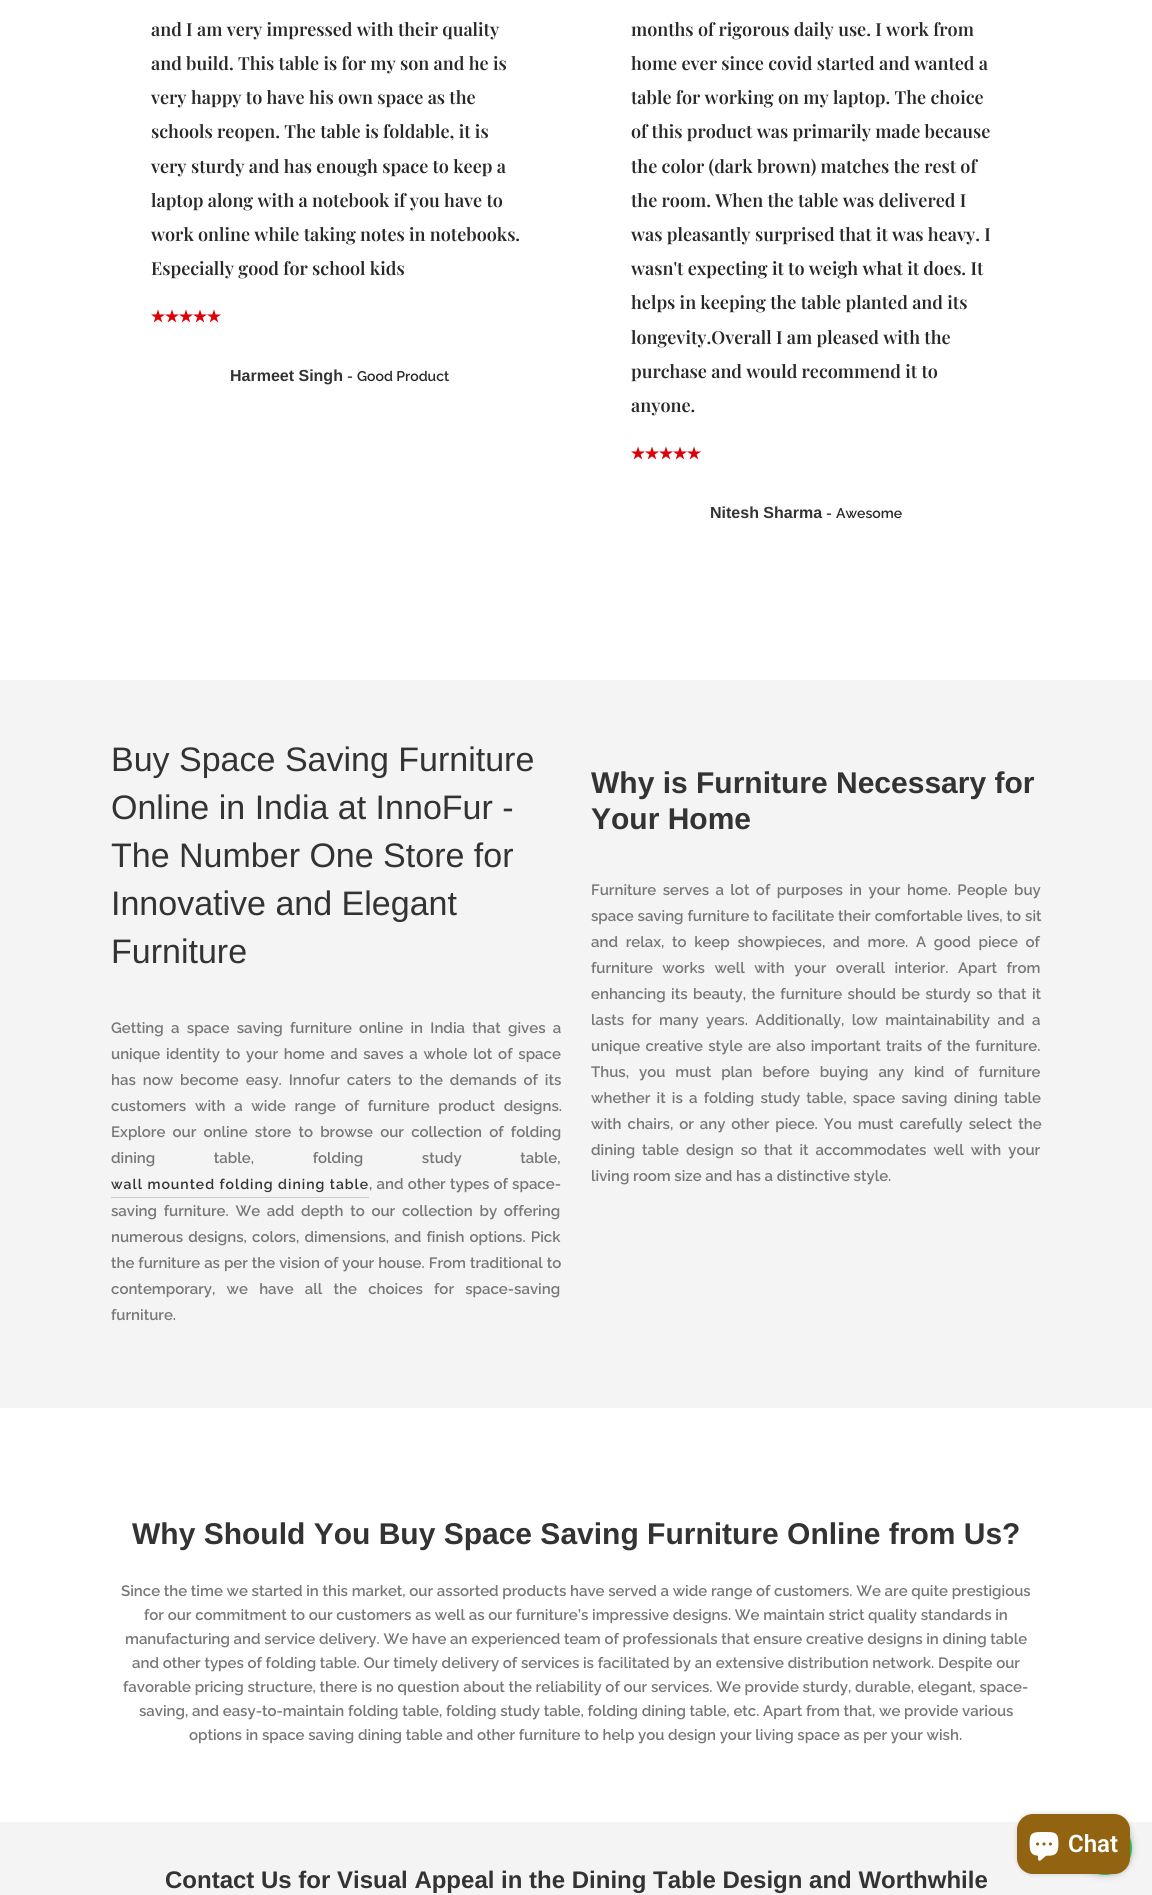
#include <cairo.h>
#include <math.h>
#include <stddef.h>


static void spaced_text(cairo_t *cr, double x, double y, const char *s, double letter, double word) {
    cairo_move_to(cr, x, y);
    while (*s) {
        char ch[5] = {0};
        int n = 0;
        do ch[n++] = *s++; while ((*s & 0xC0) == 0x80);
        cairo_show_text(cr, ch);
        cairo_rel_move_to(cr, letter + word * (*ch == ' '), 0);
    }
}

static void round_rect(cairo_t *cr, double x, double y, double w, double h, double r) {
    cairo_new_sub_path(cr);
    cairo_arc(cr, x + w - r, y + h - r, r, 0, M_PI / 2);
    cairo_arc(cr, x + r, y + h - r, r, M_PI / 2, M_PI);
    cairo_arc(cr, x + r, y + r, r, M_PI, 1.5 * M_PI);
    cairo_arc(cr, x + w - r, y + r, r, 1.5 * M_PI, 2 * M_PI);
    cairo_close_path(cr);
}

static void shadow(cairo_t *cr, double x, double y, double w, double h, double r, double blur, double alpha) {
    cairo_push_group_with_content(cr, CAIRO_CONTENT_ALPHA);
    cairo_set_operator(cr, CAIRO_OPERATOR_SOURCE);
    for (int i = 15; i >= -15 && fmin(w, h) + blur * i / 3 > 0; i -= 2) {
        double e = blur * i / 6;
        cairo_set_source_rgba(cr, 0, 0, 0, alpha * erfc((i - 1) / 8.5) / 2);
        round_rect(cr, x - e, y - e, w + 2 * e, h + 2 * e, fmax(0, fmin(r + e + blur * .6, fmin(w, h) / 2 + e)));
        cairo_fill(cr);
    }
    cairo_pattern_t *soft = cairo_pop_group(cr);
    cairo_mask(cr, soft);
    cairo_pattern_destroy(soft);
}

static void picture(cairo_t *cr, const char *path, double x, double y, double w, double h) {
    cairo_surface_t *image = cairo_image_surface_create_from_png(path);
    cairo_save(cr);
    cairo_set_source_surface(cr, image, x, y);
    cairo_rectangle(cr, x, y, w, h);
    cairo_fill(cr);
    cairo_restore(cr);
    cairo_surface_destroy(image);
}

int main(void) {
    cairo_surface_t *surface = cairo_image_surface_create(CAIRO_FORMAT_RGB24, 1152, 1895);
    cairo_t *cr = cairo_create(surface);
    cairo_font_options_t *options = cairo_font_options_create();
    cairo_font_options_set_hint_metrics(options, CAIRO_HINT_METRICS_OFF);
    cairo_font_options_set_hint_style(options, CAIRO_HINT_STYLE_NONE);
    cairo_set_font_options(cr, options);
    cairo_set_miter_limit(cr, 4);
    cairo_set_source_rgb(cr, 1, 1, 1);
    cairo_paint(cr);
    cairo_select_font_face(cr, "Playfair Display SemiBold", CAIRO_FONT_SLANT_NORMAL, CAIRO_FONT_WEIGHT_NORMAL);
    cairo_set_font_size(cr, 18);
    cairo_set_source_rgb(cr, 0.157, 0.157, 0.157);
    cairo_move_to(cr, 151, 36);
    cairo_show_text(cr, "and I am very impressed with their quality");
    cairo_move_to(cr, 151, 70);
    cairo_show_text(cr, "and build. This table is for my son and he is");
    cairo_move_to(cr, 151, 104);
    cairo_show_text(cr, "very happy to have his own space as the");
    cairo_move_to(cr, 151, 138);
    cairo_show_text(cr, "schools reopen. The table is foldable, it is");
    cairo_move_to(cr, 151, 173);
    cairo_show_text(cr, "very sturdy and has enough space to keep a");
    cairo_move_to(cr, 151, 207);
    cairo_show_text(cr, "laptop along with a notebook if you have to");
    cairo_move_to(cr, 151, 241);
    cairo_show_text(cr, "work online while taking notes in notebooks.");
    cairo_move_to(cr, 151, 275);
    cairo_show_text(cr, "Especially good for school kids");
    picture(cr, "img1.png", 151, 309, 14, 14);
    picture(cr, "img1.png", 165, 309, 14, 14);
    picture(cr, "img1.png", 179, 309, 14, 14);
    picture(cr, "img1.png", 193, 309, 14, 14);
    picture(cr, "img1.png", 207, 309, 14, 14);
    cairo_select_font_face(cr, "Liberation Sans", CAIRO_FONT_SLANT_NORMAL, CAIRO_FONT_WEIGHT_BOLD);
    cairo_set_font_size(cr, 16);
    cairo_set_source_rgb(cr, 0.2, 0.2, 0.2);
    cairo_move_to(cr, 230, 381);
    cairo_show_text(cr, "Harmeet Singh");
    cairo_select_font_face(cr, "Raleway SemiBold", CAIRO_FONT_SLANT_NORMAL, CAIRO_FONT_WEIGHT_NORMAL);
    cairo_set_font_size(cr, 14);
    cairo_set_source_rgb(cr, 0.157, 0.157, 0.157);
    cairo_move_to(cr, 347, 381);
    cairo_show_text(cr, "-");
    cairo_move_to(cr, 357, 381);
    cairo_show_text(cr, "Good Product");
    cairo_select_font_face(cr, "Playfair Display SemiBold", CAIRO_FONT_SLANT_NORMAL, CAIRO_FONT_WEIGHT_NORMAL);
    cairo_set_font_size(cr, 18);
    cairo_move_to(cr, 631, 36);
    cairo_show_text(cr, "months of rigorous daily use. I work from");
    cairo_move_to(cr, 631, 70);
    cairo_show_text(cr, "home ever since covid started and wanted a");
    cairo_move_to(cr, 631, 104);
    cairo_show_text(cr, "table for working on my laptop. The choice");
    cairo_move_to(cr, 631, 138);
    cairo_show_text(cr, "of this product was primarily made because");
    cairo_move_to(cr, 631, 173);
    cairo_show_text(cr, "the color (dark brown) matches the rest of");
    cairo_move_to(cr, 631, 207);
    cairo_show_text(cr, "the room. When the table was delivered I");
    cairo_move_to(cr, 631, 241);
    cairo_show_text(cr, "was pleasantly surprised that it was heavy. I");
    cairo_move_to(cr, 631, 275);
    cairo_show_text(cr, "wasn't expecting it to weigh what it does. It");
    cairo_move_to(cr, 631, 309);
    cairo_show_text(cr, "helps in keeping the table planted and its");
    cairo_move_to(cr, 631, 344);
    cairo_show_text(cr, "longevity.Overall I am pleased with the");
    cairo_move_to(cr, 631, 378);
    cairo_show_text(cr, "purchase and would recommend it to");
    cairo_move_to(cr, 631, 412);
    cairo_show_text(cr, "anyone.");
    picture(cr, "img1.png", 631, 446, 14, 14);
    picture(cr, "img1.png", 645, 446, 14, 14);
    picture(cr, "img1.png", 659, 446, 14, 14);
    picture(cr, "img1.png", 673, 446, 14, 14);
    picture(cr, "img1.png", 687, 446, 14, 14);
    cairo_select_font_face(cr, "Liberation Sans", CAIRO_FONT_SLANT_NORMAL, CAIRO_FONT_WEIGHT_BOLD);
    cairo_set_font_size(cr, 16);
    cairo_set_source_rgb(cr, 0.2, 0.2, 0.2);
    cairo_move_to(cr, 710, 518);
    cairo_show_text(cr, "Nitesh Sharma");
    cairo_select_font_face(cr, "Raleway SemiBold", CAIRO_FONT_SLANT_NORMAL, CAIRO_FONT_WEIGHT_NORMAL);
    cairo_set_font_size(cr, 14);
    cairo_set_source_rgb(cr, 0.157, 0.157, 0.157);
    cairo_move_to(cr, 826, 518);
    cairo_show_text(cr, "-");
    cairo_move_to(cr, 836, 518);
    cairo_show_text(cr, "Awesome");
    cairo_set_source_rgb(cr, 0.957, 0.957, 0.957);
    cairo_rectangle(cr, 0, 680, 1152, 728);
    cairo_fill(cr);
    cairo_select_font_face(cr, "Liberation Sans", CAIRO_FONT_SLANT_NORMAL, CAIRO_FONT_WEIGHT_NORMAL);
    cairo_set_font_size(cr, 34);
    cairo_set_source_rgb(cr, 0.2, 0.2, 0.2);
    cairo_move_to(cr, 111, 771);
    cairo_show_text(cr, "Buy Space Saving Furniture");
    cairo_move_to(cr, 111, 819);
    cairo_show_text(cr, "Online in India at InnoFur -");
    cairo_move_to(cr, 111, 867);
    cairo_show_text(cr, "The Number One Store for");
    cairo_move_to(cr, 111, 915);
    cairo_show_text(cr, "Innovative and Elegant");
    cairo_move_to(cr, 111, 963);
    cairo_show_text(cr, "Furniture");
    cairo_select_font_face(cr, "Raleway SemiBold", CAIRO_FONT_SLANT_NORMAL, CAIRO_FONT_WEIGHT_NORMAL);
    cairo_set_font_size(cr, 15);
    cairo_set_source_rgb(cr, 0.467, 0.467, 0.467);
    spaced_text(cr, 111, 1033, "Getting a space saving furniture online in India that gives a", 0, 3.6);
    spaced_text(cr, 111, 1059, "unique identity to your home and saves a whole lot of space", 0, 2.1);
    spaced_text(cr, 111, 1085, "has now become easy. Innofur caters to the demands of its", 0, 3.25);
    spaced_text(cr, 111, 1111, "customers with a wide range of furniture product designs.", 0, 5);
    spaced_text(cr, 111, 1137, "Explore our online store to browse our collection of folding", 0, 3.5);
    spaced_text(cr, 111, 1163, "dining table, folding study table,", 0, 55);
    cairo_set_source_rgb(cr, 0.8, 0.8, 0.8);
    cairo_rectangle(cr, 111, 1197, 258, 1);
    cairo_fill(cr);
    cairo_set_font_size(cr, 14);
    cairo_set_source_rgb(cr, 0.2, 0.2, 0.2);
    spaced_text(cr, 111, 1189, "wall mounted folding dining table", 1, 0);
    cairo_set_font_size(cr, 15);
    cairo_set_source_rgb(cr, 0.467, 0.467, 0.467);
    spaced_text(cr, 369, 1189, ", and other types of space-", 0, 0.5);
    spaced_text(cr, 111, 1216, "saving furniture. We add depth to our collection by offering", 0, 3);
    spaced_text(cr, 111, 1242, "numerous designs, colors, dimensions, and finish options. Pick", 0, 1.5);
    spaced_text(cr, 111, 1268, "the furniture as per the vision of your house. From traditional to", 0, 0.25);
    spaced_text(cr, 111, 1294, "contemporary, we have all the choices for space-saving", 0, 7.5);
    cairo_move_to(cr, 111, 1320);
    cairo_show_text(cr, "furniture.");
    cairo_select_font_face(cr, "Liberation Sans", CAIRO_FONT_SLANT_NORMAL, CAIRO_FONT_WEIGHT_BOLD);
    cairo_set_font_size(cr, 30);
    cairo_set_source_rgb(cr, 0.2, 0.2, 0.2);
    cairo_move_to(cr, 591, 793);
    cairo_show_text(cr, "Why is Furniture Necessary for");
    cairo_move_to(cr, 591, 829);
    cairo_show_text(cr, "Your Home");
    cairo_select_font_face(cr, "Raleway SemiBold", CAIRO_FONT_SLANT_NORMAL, CAIRO_FONT_WEIGHT_NORMAL);
    cairo_set_font_size(cr, 15);
    cairo_set_source_rgb(cr, 0.467, 0.467, 0.467);
    spaced_text(cr, 591, 895, "Furniture serves a lot of purposes in your home. People buy", 0, 2.75);
    spaced_text(cr, 591, 921, "space saving furniture to facilitate their comfortable lives, to sit", 0, 0.25);
    spaced_text(cr, 591, 947, "and relax, to keep showpieces, and more. A good piece of", 0, 4);
    spaced_text(cr, 591, 973, "furniture works well with your overall interior. Apart from", 0, 5.75);
    spaced_text(cr, 591, 999, "enhancing its beauty, the furniture should be sturdy so that it", 0, 1.75);
    spaced_text(cr, 591, 1025, "lasts for many years. Additionally, low maintainability and a", 0, 3.75);
    spaced_text(cr, 591, 1051, "unique creative style are also important traits of the furniture.", 0, 1.5);
    spaced_text(cr, 591, 1077, "Thus, you must plan before buying any kind of furniture", 0, 6.25);
    spaced_text(cr, 591, 1103, "whether it is a folding study table, space saving dining table", 0, 2.5);
    spaced_text(cr, 591, 1129, "with chairs, or any other piece. You must carefully select the", 0, 2.25);
    spaced_text(cr, 591, 1155, "dining table design so that it accommodates well with your", 0, 3.25);
    cairo_move_to(cr, 591, 1181);
    cairo_show_text(cr, "living room size and has a distinctive style.");
    cairo_select_font_face(cr, "Liberation Sans", CAIRO_FONT_SLANT_NORMAL, CAIRO_FONT_WEIGHT_BOLD);
    cairo_set_font_size(cr, 30);
    cairo_set_source_rgb(cr, 0.2, 0.2, 0.2);
    cairo_move_to(cr, 132, 1544);
    cairo_show_text(cr, "Why Should You Buy Space Saving Furniture Online from Us?");
    cairo_select_font_face(cr, "Raleway SemiBold", CAIRO_FONT_SLANT_NORMAL, CAIRO_FONT_WEIGHT_NORMAL);
    cairo_set_font_size(cr, 15);
    cairo_set_source_rgb(cr, 0.467, 0.467, 0.467);
    cairo_move_to(cr, 121, 1596);
    cairo_show_text(cr, "Since the time we started in this market, our assorted products have served a wide range of customers. We are quite prestigious");
    cairo_move_to(cr, 144, 1620);
    cairo_show_text(cr, "for our commitment to our customers as well as our furniture’s impressive designs. We maintain strict quality standards in");
    cairo_move_to(cr, 125, 1644);
    cairo_show_text(cr, "manufacturing and service delivery. We have an experienced team of professionals that ensure creative designs in dining table");
    cairo_move_to(cr, 132, 1668);
    cairo_show_text(cr, "and other types of folding table. Our timely delivery of services is facilitated by an extensive distribution network. Despite our");
    cairo_move_to(cr, 123, 1692);
    cairo_show_text(cr, "favorable pricing structure, there is no question about the reliability of our services. We provide sturdy, durable, elegant, space-");
    cairo_move_to(cr, 139, 1716);
    cairo_show_text(cr, "saving, and easy-to-maintain folding table, folding study table, folding dining table, etc. Apart from that, we provide various");
    cairo_move_to(cr, 189, 1740);
    cairo_show_text(cr, "options in space saving dining table and other furniture to help you design your living space as per your wish.");
    cairo_set_source_rgb(cr, 0.957, 0.957, 0.957);
    cairo_rectangle(cr, 0, 1822, 1152, 73);
    cairo_fill(cr);
    cairo_select_font_face(cr, "Liberation Sans", CAIRO_FONT_SLANT_NORMAL, CAIRO_FONT_WEIGHT_BOLD);
    cairo_set_font_size(cr, 24);
    cairo_set_source_rgb(cr, 0.2, 0.2, 0.2);
    cairo_move_to(cr, 165, 1888);
    cairo_show_text(cr, "Contact Us for Visual Appeal in the Dining Table Design and Worthwhile");
    cairo_set_source_rgb(cr, 0.761, 0.761, 0.761);
    shadow(cr, 1078, 1821, 54, 54, 27, 4, 1);
    cairo_set_source_rgb(cr, 0.133, 0.808, 0.353);
    cairo_arc(cr, 1105, 1848, 27, 0, 2 * M_PI);
    cairo_fill(cr);
    cairo_set_source_rgb(cr, 0, 0, 0);
    shadow(cr, 1017, 1814, 113, 60, 16, 2.5, 0.15);
    cairo_set_source_rgb(cr, 0.573, 0.392, 0.071);
    round_rect(cr, 1017, 1814, 113, 60, 16);
    cairo_fill(cr);
    picture(cr, "img2.png", 1029, 1832, 30, 29);
    cairo_select_font_face(cr, "Roboto SemiBold", CAIRO_FONT_SLANT_NORMAL, CAIRO_FONT_WEIGHT_NORMAL);
    cairo_set_source_rgb(cr, 1, 1, 1);
    cairo_move_to(cr, 1068, 1852);
    cairo_show_text(cr, "Chat");
    cairo_surface_write_to_png(surface, "page.png");
    cairo_font_options_destroy(options);
    cairo_destroy(cr);
    cairo_surface_destroy(surface);
    return 0;
}
